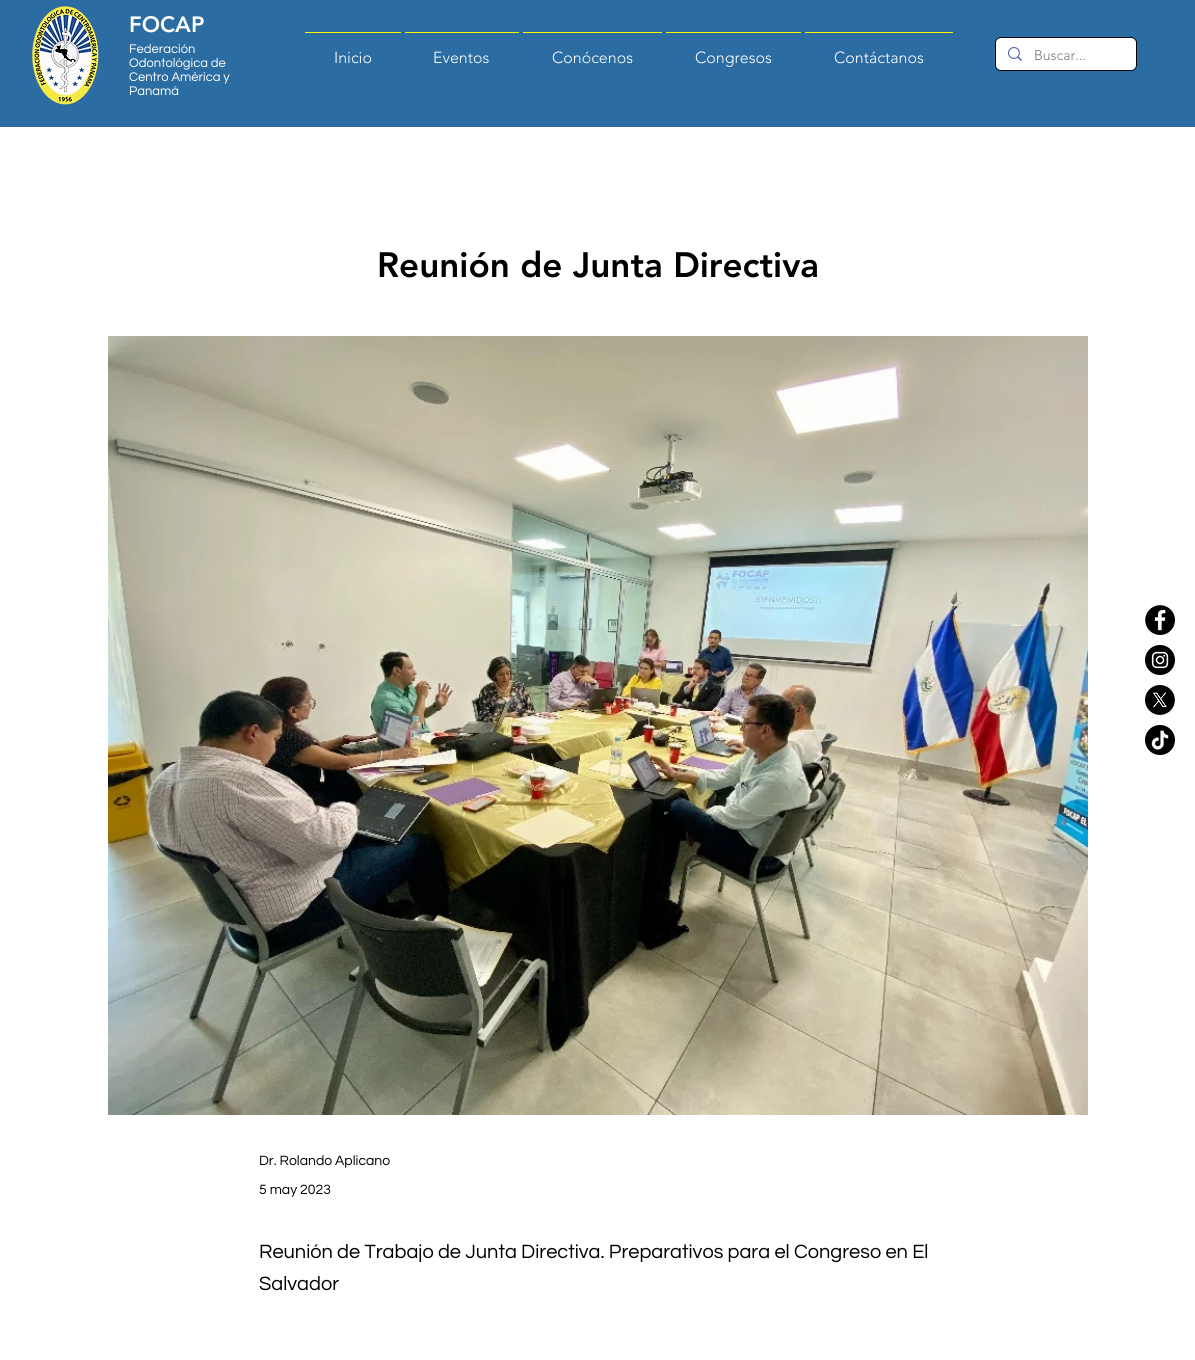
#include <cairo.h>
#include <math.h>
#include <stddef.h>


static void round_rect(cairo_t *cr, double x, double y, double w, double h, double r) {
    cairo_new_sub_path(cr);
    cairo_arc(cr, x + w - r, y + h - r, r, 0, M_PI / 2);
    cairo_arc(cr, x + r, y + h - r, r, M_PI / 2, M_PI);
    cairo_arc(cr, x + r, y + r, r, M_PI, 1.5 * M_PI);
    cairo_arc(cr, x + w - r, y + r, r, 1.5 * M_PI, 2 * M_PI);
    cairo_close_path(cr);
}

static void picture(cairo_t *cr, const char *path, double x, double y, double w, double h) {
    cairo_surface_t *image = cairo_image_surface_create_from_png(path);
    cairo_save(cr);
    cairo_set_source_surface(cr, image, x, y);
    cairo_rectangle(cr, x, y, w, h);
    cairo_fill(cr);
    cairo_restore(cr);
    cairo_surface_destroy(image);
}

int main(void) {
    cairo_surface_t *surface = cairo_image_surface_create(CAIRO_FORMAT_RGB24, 1195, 1360);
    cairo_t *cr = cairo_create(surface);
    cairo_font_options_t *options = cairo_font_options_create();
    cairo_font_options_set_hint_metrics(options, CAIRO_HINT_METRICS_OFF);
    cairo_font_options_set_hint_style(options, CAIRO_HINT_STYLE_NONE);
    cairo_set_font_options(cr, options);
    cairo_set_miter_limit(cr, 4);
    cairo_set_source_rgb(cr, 1, 1, 1);
    cairo_paint(cr);
    cairo_set_source_rgb(cr, 0.169, 0.424, 0.639);
    cairo_rectangle(cr, 0, 0, 1195, 127);
    cairo_fill(cr);
    picture(cr, "img1.png", 32, 6, 67, 99);
    cairo_select_font_face(cr, "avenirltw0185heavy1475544 Black", CAIRO_FONT_SLANT_NORMAL, CAIRO_FONT_WEIGHT_NORMAL);
    cairo_set_font_size(cr, 22);
    cairo_set_source_rgb(cr, 1, 1, 1);
    cairo_move_to(cr, 129, 32);
    cairo_show_text(cr, "FOCAP");
    cairo_select_font_face(cr, "Questrial", CAIRO_FONT_SLANT_NORMAL, CAIRO_FONT_WEIGHT_NORMAL);
    cairo_set_font_size(cr, 13);
    cairo_move_to(cr, 129, 53);
    cairo_show_text(cr, "Federación");
    cairo_move_to(cr, 129, 67);
    cairo_show_text(cr, "Odontológica de");
    cairo_move_to(cr, 129, 81);
    cairo_show_text(cr, "Centro América y");
    cairo_move_to(cr, 129, 95);
    cairo_show_text(cr, "Panamá");
    cairo_set_source_rgb(cr, 0.984, 0.957, 0.016);
    cairo_rectangle(cr, 305, 32, 96, 1);
    cairo_fill(cr);
    cairo_select_font_face(cr, "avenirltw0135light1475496 Light", CAIRO_FONT_SLANT_NORMAL, CAIRO_FONT_WEIGHT_NORMAL);
    cairo_set_font_size(cr, 16);
    cairo_set_source_rgb(cr, 1, 1, 1);
    cairo_move_to(cr, 334, 63);
    cairo_show_text(cr, "Inicio");
    cairo_set_source_rgb(cr, 0.984, 0.957, 0.016);
    cairo_rectangle(cr, 405, 32, 114, 1);
    cairo_fill(cr);
    cairo_set_source_rgb(cr, 1, 1, 1);
    cairo_move_to(cr, 433, 63);
    cairo_show_text(cr, "Eventos");
    cairo_set_source_rgb(cr, 0.984, 0.957, 0.016);
    cairo_rectangle(cr, 523, 32, 139, 1);
    cairo_fill(cr);
    cairo_set_source_rgb(cr, 1, 1, 1);
    cairo_move_to(cr, 552, 63);
    cairo_show_text(cr, "Conócenos");
    cairo_set_source_rgb(cr, 0.984, 0.957, 0.016);
    cairo_rectangle(cr, 666, 32, 135, 1);
    cairo_fill(cr);
    cairo_set_source_rgb(cr, 1, 1, 1);
    cairo_move_to(cr, 695, 63);
    cairo_show_text(cr, "Congresos");
    cairo_set_source_rgb(cr, 0.984, 0.957, 0.016);
    cairo_rectangle(cr, 805, 32, 148, 1);
    cairo_fill(cr);
    cairo_set_source_rgb(cr, 1, 1, 1);
    cairo_move_to(cr, 834, 63);
    cairo_show_text(cr, "Contáctanos");
    round_rect(cr, 995.5, 37.5, 141, 33, 5.5);
    cairo_set_source_rgb(cr, 0, 0, 0);
    cairo_set_line_width(cr, 1);
    cairo_stroke(cr);
    cairo_set_source_rgb(cr, 1, 1, 1);
    round_rect(cr, 996, 38, 140, 32, 5);
    cairo_fill(cr);
    picture(cr, "img2.png", 1008, 47, 14, 14);
    cairo_set_font_size(cr, 14);
    cairo_set_source_rgb(cr, 0.471, 0.471, 0.471);
    cairo_move_to(cr, 1034, 60);
    cairo_show_text(cr, "Buscar...");
    cairo_select_font_face(cr, "avenirltw0185heavy1475544 Black", CAIRO_FONT_SLANT_NORMAL, CAIRO_FONT_WEIGHT_NORMAL);
    cairo_set_font_size(cr, 35);
    cairo_set_source_rgb(cr, 0, 0, 0);
    cairo_move_to(cr, 377, 277);
    cairo_show_text(cr, "Reunión de Junta Directiva");
    picture(cr, "img3.png", 108, 336, 980, 779);
    cairo_select_font_face(cr, "Questrial", CAIRO_FONT_SLANT_NORMAL, CAIRO_FONT_WEIGHT_NORMAL);
    cairo_set_font_size(cr, 14);
    cairo_move_to(cr, 259, 1165);
    cairo_show_text(cr, "Dr. Rolando Aplicano");
    cairo_move_to(cr, 259, 1194);
    cairo_show_text(cr, "5 may 2023");
    cairo_set_font_size(cr, 20);
    cairo_move_to(cr, 259, 1258);
    cairo_show_text(cr, "Reunión de Trabajo de Junta Directiva. Preparativos para el Congreso en El");
    cairo_move_to(cr, 259, 1290);
    cairo_show_text(cr, "Salvador");
    picture(cr, "img4.png", 1145, 605, 30, 30);
    picture(cr, "img5.png", 1145, 645, 30, 30);
    picture(cr, "img6.png", 1145, 685, 30, 30);
    picture(cr, "img7.png", 1145, 725, 30, 30);
    cairo_surface_write_to_png(surface, "page.png");
    cairo_font_options_destroy(options);
    cairo_destroy(cr);
    cairo_surface_destroy(surface);
    return 0;
}
